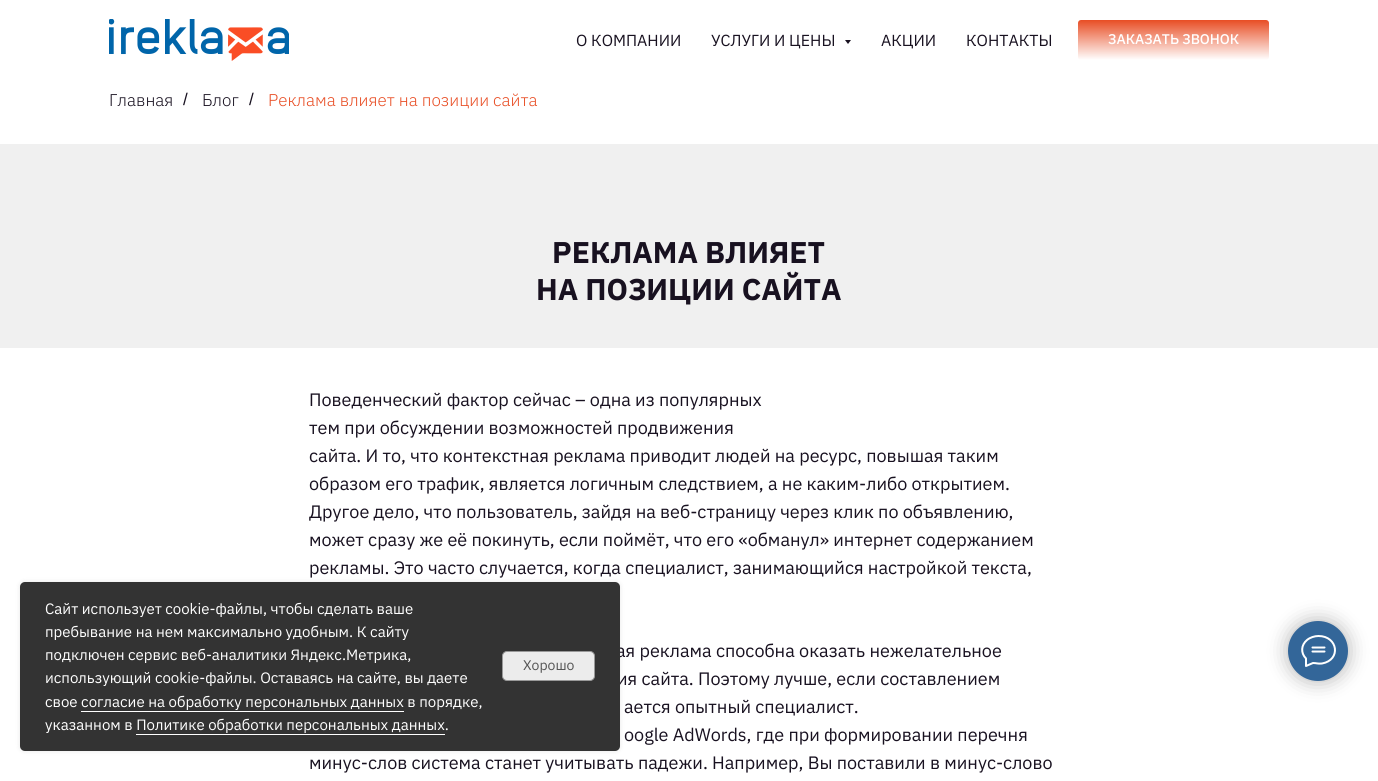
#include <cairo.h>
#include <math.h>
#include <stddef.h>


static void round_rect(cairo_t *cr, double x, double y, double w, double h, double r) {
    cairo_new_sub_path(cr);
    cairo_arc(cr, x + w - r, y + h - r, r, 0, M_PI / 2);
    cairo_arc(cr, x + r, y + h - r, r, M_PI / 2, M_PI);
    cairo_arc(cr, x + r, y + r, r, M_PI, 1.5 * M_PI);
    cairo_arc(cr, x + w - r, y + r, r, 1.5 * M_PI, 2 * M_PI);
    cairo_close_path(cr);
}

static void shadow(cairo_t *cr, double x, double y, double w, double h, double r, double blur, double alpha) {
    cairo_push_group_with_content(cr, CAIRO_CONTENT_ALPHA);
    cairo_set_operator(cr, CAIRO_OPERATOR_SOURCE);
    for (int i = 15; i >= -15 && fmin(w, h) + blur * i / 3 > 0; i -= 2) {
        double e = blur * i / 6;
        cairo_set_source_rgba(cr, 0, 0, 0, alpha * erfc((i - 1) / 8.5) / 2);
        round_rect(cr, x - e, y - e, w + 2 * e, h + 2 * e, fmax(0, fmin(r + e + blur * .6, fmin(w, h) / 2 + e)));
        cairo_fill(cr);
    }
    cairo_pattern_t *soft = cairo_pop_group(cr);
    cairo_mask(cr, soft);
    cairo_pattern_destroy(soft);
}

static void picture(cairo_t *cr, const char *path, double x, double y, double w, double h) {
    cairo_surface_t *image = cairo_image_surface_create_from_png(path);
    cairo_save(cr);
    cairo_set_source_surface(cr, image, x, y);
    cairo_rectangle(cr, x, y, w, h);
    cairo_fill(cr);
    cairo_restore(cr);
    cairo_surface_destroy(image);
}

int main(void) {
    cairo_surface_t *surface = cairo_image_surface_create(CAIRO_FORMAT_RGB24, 1378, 781);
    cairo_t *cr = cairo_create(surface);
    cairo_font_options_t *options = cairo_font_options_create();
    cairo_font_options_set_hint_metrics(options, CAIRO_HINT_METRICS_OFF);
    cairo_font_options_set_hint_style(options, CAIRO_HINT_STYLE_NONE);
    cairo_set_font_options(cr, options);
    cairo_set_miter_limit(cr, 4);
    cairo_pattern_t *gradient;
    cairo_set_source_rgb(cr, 1, 1, 1);
    cairo_paint(cr);
    picture(cr, "img1.png", 109, 19, 180, 42);
    cairo_select_font_face(cr, "IBM Plex Sans", CAIRO_FONT_SLANT_NORMAL, CAIRO_FONT_WEIGHT_NORMAL);
    cairo_set_font_size(cr, 16);
    cairo_set_source_rgb(cr, 0.094, 0.067, 0.125);
    cairo_move_to(cr, 576, 46);
    cairo_show_text(cr, "О КОМПАНИИ");
    cairo_move_to(cr, 711, 46);
    cairo_show_text(cr, "УСЛУГИ И ЦЕНЫ");
    cairo_new_path(cr);
    cairo_move_to(cr, 845, 40);
    cairo_line_to(cr, 851, 40);
    cairo_line_to(cr, 848, 44);
    cairo_close_path(cr);
    cairo_fill(cr);
    cairo_move_to(cr, 881, 46);
    cairo_show_text(cr, "АКЦИИ");
    cairo_move_to(cr, 966, 46);
    cairo_show_text(cr, "КОНТАКТЫ");
    gradient = cairo_pattern_create_linear(1174, 20, 1174, 60);
    cairo_pattern_add_color_stop_rgba(gradient, 0, 0.91, 0.302, 0.141, 1);
    cairo_pattern_add_color_stop_rgba(gradient, 1, 1, 1, 1, 1);
    cairo_set_source(cr, gradient);
    cairo_pattern_destroy(gradient);
    round_rect(cr, 1078, 20, 191, 40, 3);
    cairo_fill(cr);
    cairo_select_font_face(cr, "IBM Plex Sans Medium", CAIRO_FONT_SLANT_NORMAL, CAIRO_FONT_WEIGHT_NORMAL);
    cairo_set_font_size(cr, 14);
    cairo_set_source_rgb(cr, 1, 1, 1);
    cairo_move_to(cr, 1108, 44);
    cairo_show_text(cr, "ЗАКАЗАТЬ ЗВОНОК");
    cairo_select_font_face(cr, "IBM Plex Sans Light", CAIRO_FONT_SLANT_NORMAL, CAIRO_FONT_WEIGHT_NORMAL);
    cairo_set_font_size(cr, 17);
    cairo_set_source_rgb(cr, 0.094, 0.067, 0.125);
    cairo_move_to(cr, 109, 106);
    cairo_show_text(cr, "Главная");
    cairo_select_font_face(cr, "Liberation Sans", CAIRO_FONT_SLANT_NORMAL, CAIRO_FONT_WEIGHT_NORMAL);
    cairo_move_to(cr, 183, 105);
    cairo_show_text(cr, "/");
    cairo_select_font_face(cr, "IBM Plex Sans Light", CAIRO_FONT_SLANT_NORMAL, CAIRO_FONT_WEIGHT_NORMAL);
    cairo_move_to(cr, 202, 106);
    cairo_show_text(cr, "Блог");
    cairo_select_font_face(cr, "Liberation Sans", CAIRO_FONT_SLANT_NORMAL, CAIRO_FONT_WEIGHT_NORMAL);
    cairo_move_to(cr, 249, 105);
    cairo_show_text(cr, "/");
    cairo_select_font_face(cr, "IBM Plex Sans Light", CAIRO_FONT_SLANT_NORMAL, CAIRO_FONT_WEIGHT_NORMAL);
    cairo_set_source_rgb(cr, 0.91, 0.302, 0.141);
    cairo_move_to(cr, 268, 106);
    cairo_show_text(cr, "Реклама влияет на позиции сайта");
    cairo_set_source_rgb(cr, 0.941, 0.941, 0.941);
    cairo_rectangle(cr, 0, 144, 1378, 204);
    cairo_fill(cr);
    cairo_select_font_face(cr, "IBM Plex Sans", CAIRO_FONT_SLANT_NORMAL, CAIRO_FONT_WEIGHT_BOLD);
    cairo_set_font_size(cr, 30);
    cairo_set_source_rgb(cr, 0.094, 0.067, 0.125);
    cairo_move_to(cr, 552, 263);
    cairo_show_text(cr, "РЕКЛАМА ВЛИЯЕТ");
    cairo_move_to(cr, 536, 300);
    cairo_show_text(cr, "НА ПОЗИЦИИ САЙТА");
    cairo_select_font_face(cr, "IBM Plex Sans", CAIRO_FONT_SLANT_NORMAL, CAIRO_FONT_WEIGHT_NORMAL);
    cairo_set_font_size(cr, 18);
    cairo_move_to(cr, 309, 406);
    cairo_show_text(cr, "Поведенческий фактор сейчас – одна из популярных");
    cairo_move_to(cr, 309, 434);
    cairo_show_text(cr, "тем при обсуждении возможностей продвижения");
    cairo_move_to(cr, 309, 462);
    cairo_show_text(cr, "сайта. И то, что контекстная реклама приводит людей на ресурс, повышая таким");
    cairo_move_to(cr, 309, 490);
    cairo_show_text(cr, "образом его трафик, является логичным следствием, а не каким-либо открытием.");
    cairo_move_to(cr, 309, 518);
    cairo_show_text(cr, "Другое дело, что пользователь, зайдя на веб-страницу через клик по объявлению,");
    cairo_move_to(cr, 309, 546);
    cairo_show_text(cr, "может сразу же её покинуть, если поймёт, что его «обманул» интернет содержанием");
    cairo_move_to(cr, 309, 574);
    cairo_show_text(cr, "рекламы. Это часто случается, когда специалист, занимающийся настройкой текста,");
    cairo_move_to(cr, 616, 657);
    cairo_show_text(cr, "ая реклама способна оказать нежелательное");
    cairo_move_to(cr, 617, 685);
    cairo_show_text(cr, "ия сайта. Поэтому лучше, если составлением");
    cairo_move_to(cr, 624, 713);
    cairo_show_text(cr, "ается опытный специалист.");
    cairo_move_to(cr, 624, 741);
    cairo_show_text(cr, "oogle AdWords, где при формировании перечня");
    cairo_move_to(cr, 309, 769);
    cairo_show_text(cr, "минус-слов система станет учитывать падежи. Например, Вы поставили в минус-слово");
    cairo_set_source_rgb(cr, 0, 0, 0);
    shadow(cr, 20, 582, 600, 169, 5, 2.5, 0.1);
    cairo_set_source_rgb(cr, 0.2, 0.2, 0.2);
    round_rect(cr, 20, 582, 600, 169, 5);
    cairo_fill(cr);
    cairo_set_font_size(cr, 15);
    cairo_set_source_rgb(cr, 1, 1, 1);
    cairo_move_to(cr, 45, 614);
    cairo_show_text(cr, "Сайт использует cookie-файлы, чтобы сделать ваше");
    cairo_move_to(cr, 45, 637);
    cairo_show_text(cr, "пребывание на нем максимально удобным. К cайту");
    cairo_move_to(cr, 45, 660);
    cairo_show_text(cr, "подключен сервис веб-аналитики Яндекс.Метрика,");
    cairo_move_to(cr, 45, 683);
    cairo_show_text(cr, "использующий cookie-файлы. Оставаясь на сайте, вы даете");
    cairo_move_to(cr, 45, 707);
    cairo_show_text(cr, "свое согласие на обработку персональных данных в порядке,");
    cairo_rectangle(cr, 81, 711, 323, 1);
    cairo_fill(cr);
    cairo_move_to(cr, 45, 730);
    cairo_show_text(cr, "указанном в Политике обработки персональных данных.");
    cairo_rectangle(cr, 136, 734, 309, 1);
    cairo_fill(cr);
    cairo_set_source_rgb(cr, 0.922, 0.922, 0.922);
    round_rect(cr, 502.5, 651.5, 92, 29, 4.5);
    cairo_fill_preserve(cr);
    cairo_set_source_rgb(cr, 0.6, 0.6, 0.6);
    cairo_set_line_width(cr, 1);
    cairo_stroke(cr);
    cairo_set_font_size(cr, 14);
    cairo_set_source_rgb(cr, 0.333, 0.333, 0.333);
    cairo_move_to(cr, 523, 670);
    cairo_show_text(cr, "Хорошо");
    cairo_set_source_rgb(cr, 0, 0, 0);
    shadow(cr, 1288, 621, 60, 60, 30, 10, 0.3);
    cairo_set_source_rgb(cr, 0.2, 0.4, 0.6);
    cairo_arc(cr, 1318, 651, 30, 0, 2 * M_PI);
    cairo_fill(cr);
    cairo_new_path(cr);
    cairo_move_to(cr, 1312.5, 647.5);
    cairo_line_to(cr, 1324.5, 647.5);
    cairo_move_to(cr, 1312.5, 651.5);
    cairo_line_to(cr, 1324.5, 651.5);
    cairo_move_to(cr, 1306, 658.5);
    cairo_curve_to(cr, 1300.5, 653, 1301, 645, 1307, 640);
    cairo_curve_to(cr, 1310, 637.5, 1314.5, 636, 1318.5, 636);
    cairo_curve_to(cr, 1338, 636, 1341.5, 660, 1322, 663.5);
    cairo_curve_to(cr, 1318, 664, 1316.5, 663, 1313, 663);
    cairo_line_to(cr, 1306, 666);
    cairo_line_to(cr, 1306, 659);
    cairo_close_path(cr);
    cairo_set_source_rgb(cr, 1, 1, 1);
    cairo_set_line_width(cr, 2);
    cairo_set_line_cap(cr, CAIRO_LINE_CAP_ROUND);
    cairo_set_line_join(cr, CAIRO_LINE_JOIN_ROUND);
    cairo_stroke(cr);
    cairo_surface_write_to_png(surface, "page.png");
    cairo_font_options_destroy(options);
    cairo_destroy(cr);
    cairo_surface_destroy(surface);
    return 0;
}
